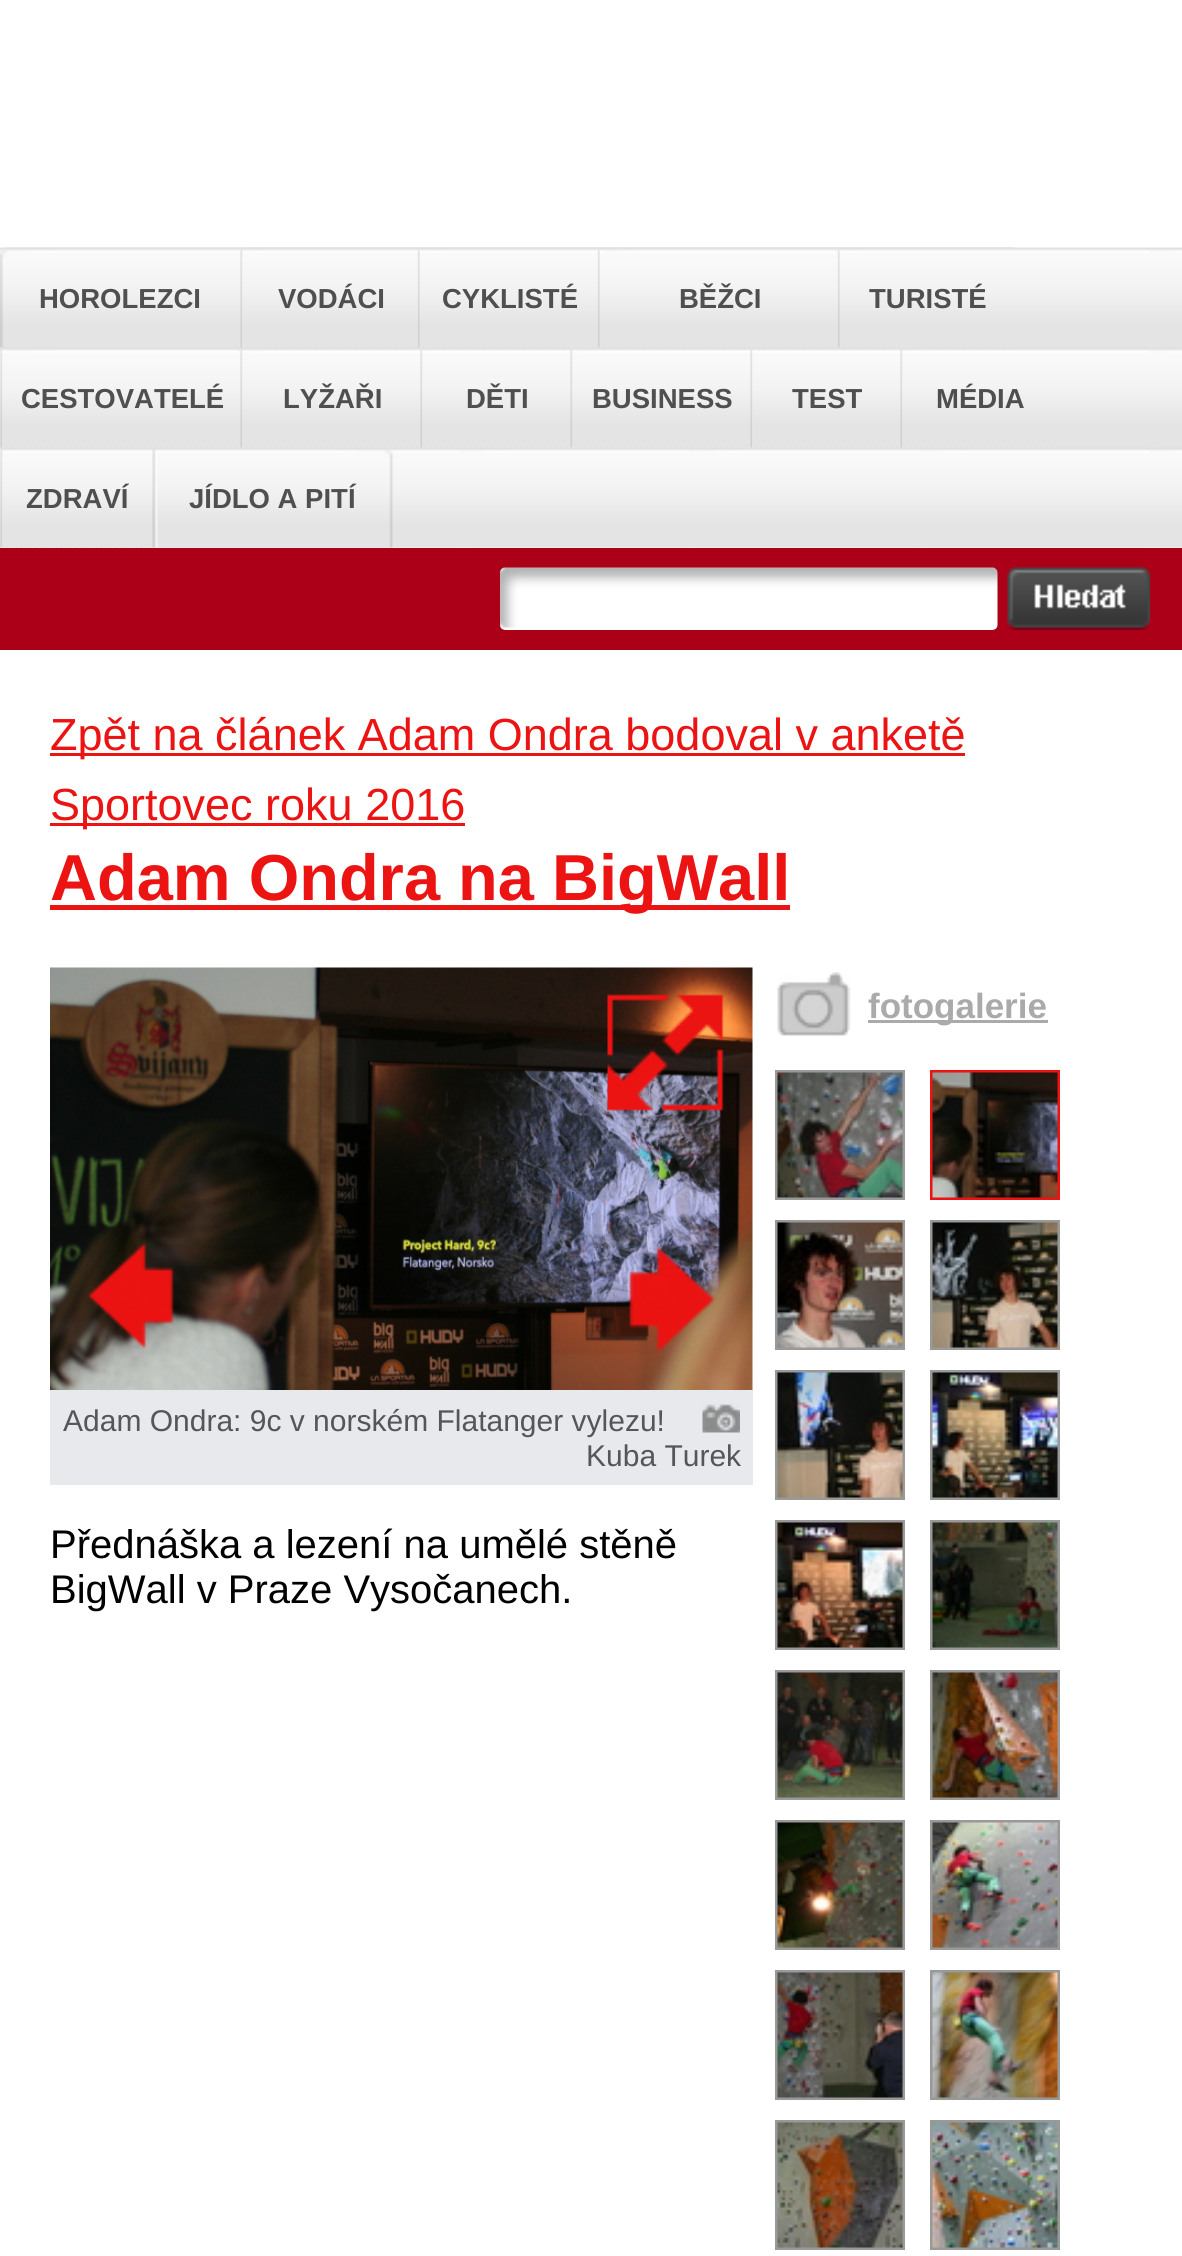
#include <cairo.h>
#include <math.h>
#include <stddef.h>


static void picture(cairo_t *cr, const char *path, double x, double y, double w, double h) {
    cairo_surface_t *image = cairo_image_surface_create_from_png(path);
    cairo_save(cr);
    cairo_set_source_surface(cr, image, x, y);
    cairo_rectangle(cr, x, y, w, h);
    cairo_fill(cr);
    cairo_restore(cr);
    cairo_surface_destroy(image);
}

int main(void) {
    cairo_surface_t *surface = cairo_image_surface_create(CAIRO_FORMAT_RGB24, 1182, 2256);
    cairo_t *cr = cairo_create(surface);
    cairo_font_options_t *options = cairo_font_options_create();
    cairo_font_options_set_hint_metrics(options, CAIRO_HINT_METRICS_OFF);
    cairo_font_options_set_hint_style(options, CAIRO_HINT_STYLE_NONE);
    cairo_set_font_options(cr, options);
    cairo_set_miter_limit(cr, 4);
    cairo_set_source_rgb(cr, 1, 1, 1);
    cairo_paint(cr);
    picture(cr, "img1.png", 0, 247, 1182, 301);
    picture(cr, "img2.png", 0, 247, 240, 101);
    cairo_select_font_face(cr, "Liberation Sans", CAIRO_FONT_SLANT_NORMAL, CAIRO_FONT_WEIGHT_BOLD);
    cairo_set_font_size(cr, 27.5);
    cairo_set_source_rgb(cr, 0.314, 0.31, 0.31);
    cairo_move_to(cr, 39, 308);
    cairo_show_text(cr, "HOROLEZCI");
    picture(cr, "img3.png", 240, 247, 178, 101);
    picture(cr, "img4.png", 242, 247, 178, 101);
    cairo_move_to(cr, 278, 308);
    cairo_show_text(cr, "VODÁCI");
    picture(cr, "img5.png", 417, 247, 181, 101);
    picture(cr, "img6.png", 420, 247, 180, 101);
    cairo_move_to(cr, 442, 308);
    cairo_show_text(cr, "CYKLISTÉ");
    picture(cr, "img7.png", 597, 247, 241, 101);
    picture(cr, "img8.png", 600, 247, 240, 101);
    cairo_move_to(cr, 679, 308);
    cairo_show_text(cr, "BĚŽCI");
    picture(cr, "img9.png", 837, 247, 176, 101);
    picture(cr, "img10.png", 840, 247, 175, 101);
    cairo_move_to(cr, 869, 308);
    cairo_show_text(cr, "TURISTÉ");
    picture(cr, "img11.png", 0, 347, 240, 101);
    picture(cr, "img12.png", 2, 349, 238, 99);
    cairo_move_to(cr, 21, 408);
    cairo_show_text(cr, "CESTOVATELÉ");
    picture(cr, "img13.png", 240, 349, 180, 99);
    picture(cr, "img14.png", 242, 349, 178, 99);
    cairo_move_to(cr, 283, 408);
    cairo_show_text(cr, "LYŽAŘI");
    picture(cr, "img15.png", 420, 349, 150, 99);
    picture(cr, "img16.png", 422, 349, 148, 99);
    cairo_move_to(cr, 466, 408);
    cairo_show_text(cr, "DĚTI");
    picture(cr, "img17.png", 570, 349, 180, 99);
    picture(cr, "img18.png", 572, 349, 178, 99);
    cairo_move_to(cr, 592, 408);
    cairo_show_text(cr, "BUSINESS");
    picture(cr, "img19.png", 750, 349, 150, 99);
    picture(cr, "img20.png", 752, 349, 148, 99);
    cairo_move_to(cr, 792, 408);
    cairo_show_text(cr, "TEST");
    picture(cr, "img21.png", 900, 349, 155, 99);
    picture(cr, "img22.png", 902, 349, 153, 99);
    cairo_move_to(cr, 936, 408);
    cairo_show_text(cr, "MÉDIA");
    picture(cr, "img23.png", 0, 449, 150, 99);
    picture(cr, "img24.png", 2, 449, 150, 99);
    cairo_move_to(cr, 26, 508);
    cairo_show_text(cr, "ZDRAVÍ");
    picture(cr, "img25.png", 152, 449, 241, 99);
    cairo_move_to(cr, 189, 508);
    cairo_show_text(cr, "JÍDLO A PITÍ");
    cairo_set_source_rgb(cr, 0.675, 0, 0.094);
    cairo_rectangle(cr, 0, 548, 1182, 102);
    cairo_fill(cr);
    picture(cr, "img26.png", 499, 567, 499, 63);
    picture(cr, "img27.png", 1007, 567, 143, 63);
    cairo_set_source_rgb(cr, 0.925, 0.075, 0.075);
    cairo_rectangle(cr, 50, 753, 915, 3);
    cairo_fill(cr);
    cairo_select_font_face(cr, "Liberation Sans", CAIRO_FONT_SLANT_NORMAL, CAIRO_FONT_WEIGHT_NORMAL);
    cairo_set_font_size(cr, 45);
    cairo_move_to(cr, 50, 750);
    cairo_show_text(cr, "Zpět na článek Adam Ondra bodoval v anketě");
    cairo_rectangle(cr, 50, 823, 415, 3);
    cairo_fill(cr);
    cairo_move_to(cr, 50, 820);
    cairo_show_text(cr, "Sportovec roku 2016");
    cairo_rectangle(cr, 50, 905, 740, 5);
    cairo_fill(cr);
    cairo_select_font_face(cr, "Liberation Sans", CAIRO_FONT_SLANT_NORMAL, CAIRO_FONT_WEIGHT_BOLD);
    cairo_set_font_size(cr, 65);
    cairo_move_to(cr, 50, 900);
    cairo_show_text(cr, "Adam Ondra na BigWall");
    picture(cr, "img28.png", 777, 972, 74, 64);
    cairo_set_source_rgb(cr, 0.667, 0.667, 0.667);
    cairo_rectangle(cr, 868, 1020, 180, 3);
    cairo_fill(cr);
    cairo_set_font_size(cr, 35);
    cairo_move_to(cr, 868, 1018);
    cairo_show_text(cr, "fotogalerie");
    cairo_rectangle(cr, 776.5, 1071.5, 127, 127);
    cairo_set_source_rgb(cr, 0.6, 0.6, 0.6);
    cairo_set_line_width(cr, 3);
    cairo_stroke(cr);
    picture(cr, "img29.png", 777, 1072, 126, 126);
    cairo_rectangle(cr, 931.5, 1071.5, 127, 127);
    cairo_set_source_rgb(cr, 0.925, 0.075, 0.075);
    cairo_stroke(cr);
    picture(cr, "img30.png", 932, 1072, 126, 126);
    cairo_rectangle(cr, 776.5, 1221.5, 127, 127);
    cairo_set_source_rgb(cr, 0.6, 0.6, 0.6);
    cairo_stroke(cr);
    picture(cr, "img31.png", 777, 1222, 126, 126);
    cairo_rectangle(cr, 931.5, 1221.5, 127, 127);
    cairo_stroke(cr);
    picture(cr, "img32.png", 932, 1222, 126, 126);
    cairo_rectangle(cr, 776.5, 1371.5, 127, 127);
    cairo_stroke(cr);
    picture(cr, "img33.png", 777, 1372, 126, 126);
    cairo_rectangle(cr, 931.5, 1371.5, 127, 127);
    cairo_stroke(cr);
    picture(cr, "img34.png", 932, 1372, 126, 126);
    cairo_rectangle(cr, 776.5, 1521.5, 127, 127);
    cairo_stroke(cr);
    picture(cr, "img35.png", 777, 1522, 126, 126);
    cairo_rectangle(cr, 931.5, 1521.5, 127, 127);
    cairo_stroke(cr);
    picture(cr, "img36.png", 932, 1522, 126, 126);
    cairo_rectangle(cr, 776.5, 1671.5, 127, 127);
    cairo_stroke(cr);
    picture(cr, "img37.png", 777, 1672, 126, 126);
    cairo_rectangle(cr, 931.5, 1671.5, 127, 127);
    cairo_stroke(cr);
    picture(cr, "img38.png", 932, 1672, 126, 126);
    cairo_rectangle(cr, 776.5, 1821.5, 127, 127);
    cairo_stroke(cr);
    picture(cr, "img39.png", 777, 1822, 126, 126);
    cairo_rectangle(cr, 931.5, 1821.5, 127, 127);
    cairo_stroke(cr);
    picture(cr, "img40.png", 932, 1822, 126, 126);
    cairo_rectangle(cr, 776.5, 1971.5, 127, 127);
    cairo_stroke(cr);
    picture(cr, "img41.png", 777, 1972, 126, 126);
    cairo_rectangle(cr, 931.5, 1971.5, 127, 127);
    cairo_stroke(cr);
    picture(cr, "img42.png", 932, 1972, 126, 126);
    cairo_rectangle(cr, 776.5, 2121.5, 127, 127);
    cairo_stroke(cr);
    picture(cr, "img43.png", 777, 2122, 126, 126);
    cairo_rectangle(cr, 931.5, 2121.5, 127, 127);
    cairo_stroke(cr);
    picture(cr, "img44.png", 932, 2122, 126, 126);
    picture(cr, "img45.png", 50, 967, 703, 423);
    picture(cr, "img46.png", 607, 994, 118, 117);
    picture(cr, "img47.png", 87, 1242, 88, 107);
    picture(cr, "img48.png", 628, 1246, 88, 107);
    cairo_set_source_rgb(cr, 0.91, 0.914, 0.922);
    cairo_rectangle(cr, 50, 1390, 703, 95);
    cairo_fill(cr);
    cairo_select_font_face(cr, "Liberation Sans", CAIRO_FONT_SLANT_NORMAL, CAIRO_FONT_WEIGHT_NORMAL);
    cairo_set_font_size(cr, 30);
    cairo_set_source_rgb(cr, 0.333, 0.337, 0.345);
    cairo_move_to(cr, 63, 1431);
    cairo_show_text(cr, "Adam Ondra: 9c v norském Flatanger vylezu!");
    picture(cr, "img49.png", 702, 1403, 38, 30);
    cairo_move_to(cr, 586, 1466);
    cairo_show_text(cr, "Kuba Turek");
    cairo_set_font_size(cr, 40);
    cairo_set_source_rgb(cr, 0, 0, 0);
    cairo_move_to(cr, 50, 1558);
    cairo_show_text(cr, "Přednáška a lezení na umělé stěně");
    cairo_move_to(cr, 50, 1603);
    cairo_show_text(cr, "BigWall v Praze Vysočanech.");
    cairo_surface_write_to_png(surface, "page.png");
    cairo_font_options_destroy(options);
    cairo_destroy(cr);
    cairo_surface_destroy(surface);
    return 0;
}
